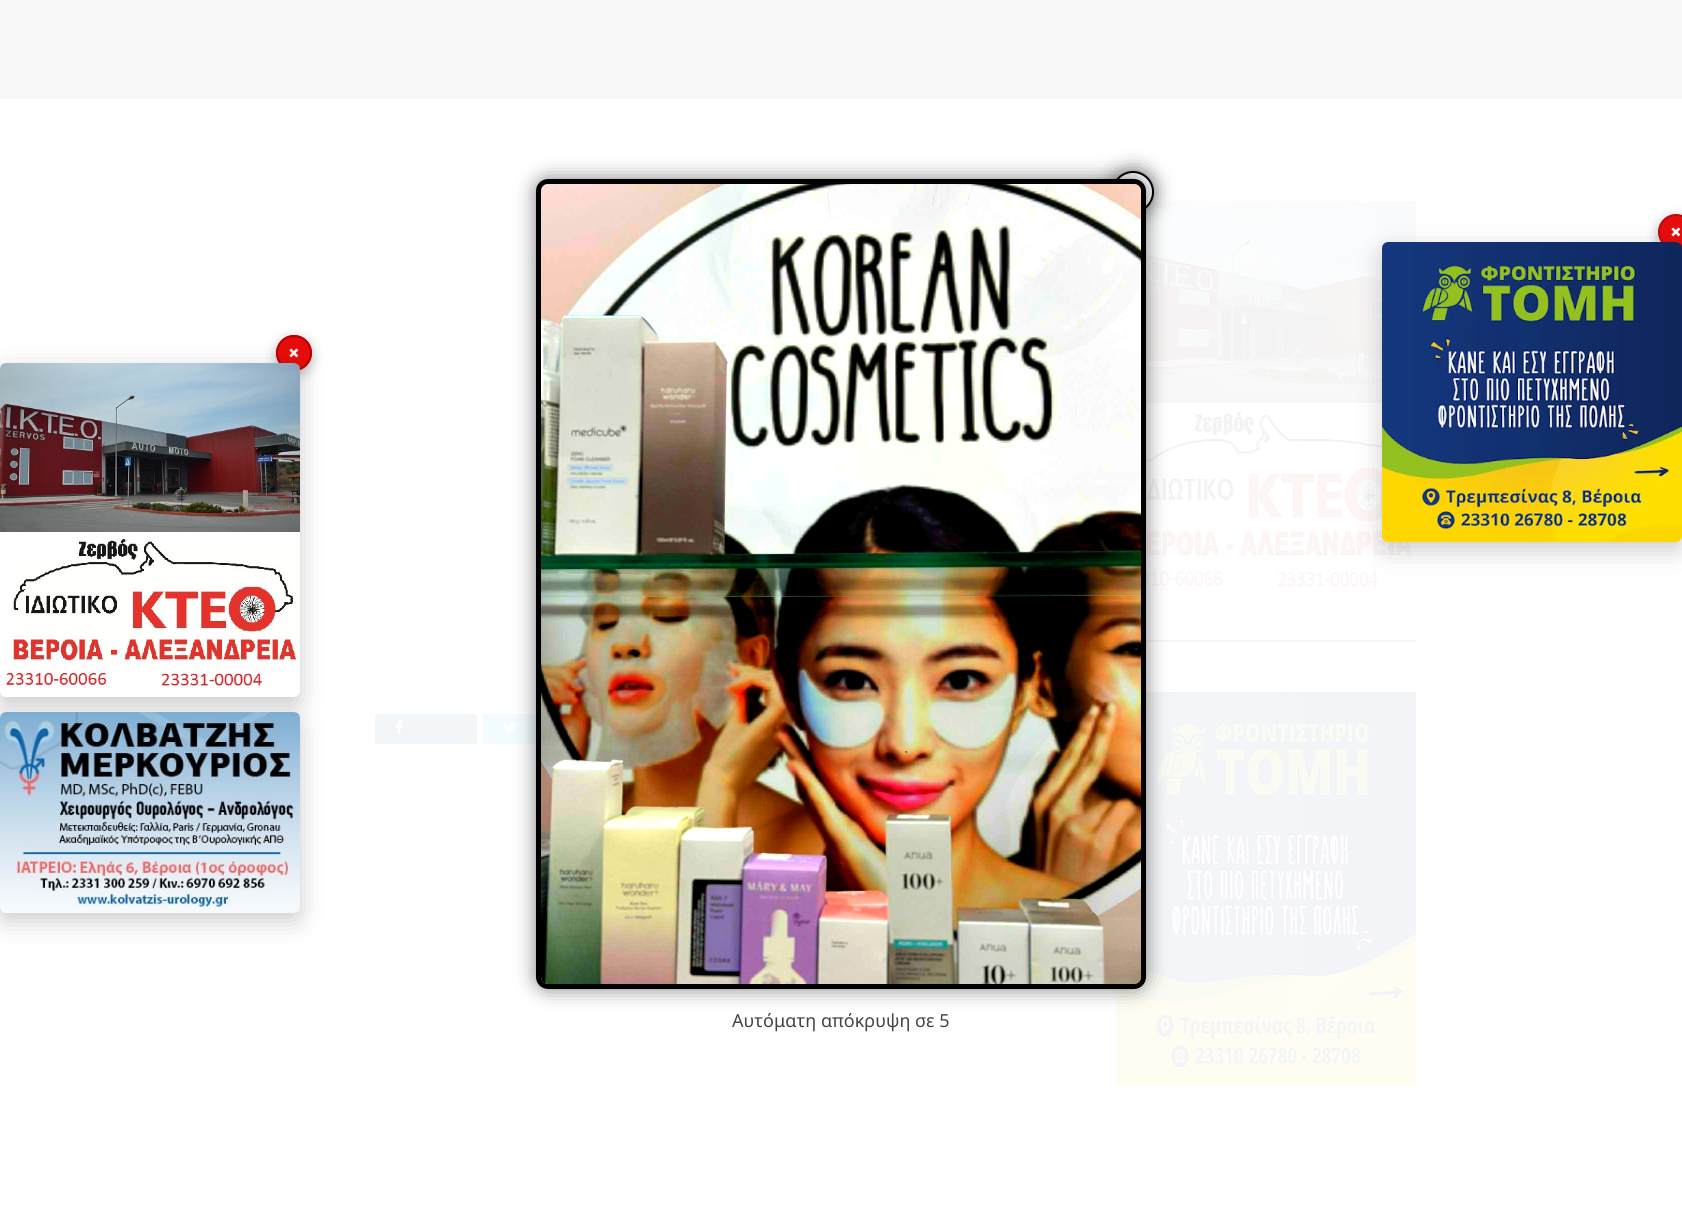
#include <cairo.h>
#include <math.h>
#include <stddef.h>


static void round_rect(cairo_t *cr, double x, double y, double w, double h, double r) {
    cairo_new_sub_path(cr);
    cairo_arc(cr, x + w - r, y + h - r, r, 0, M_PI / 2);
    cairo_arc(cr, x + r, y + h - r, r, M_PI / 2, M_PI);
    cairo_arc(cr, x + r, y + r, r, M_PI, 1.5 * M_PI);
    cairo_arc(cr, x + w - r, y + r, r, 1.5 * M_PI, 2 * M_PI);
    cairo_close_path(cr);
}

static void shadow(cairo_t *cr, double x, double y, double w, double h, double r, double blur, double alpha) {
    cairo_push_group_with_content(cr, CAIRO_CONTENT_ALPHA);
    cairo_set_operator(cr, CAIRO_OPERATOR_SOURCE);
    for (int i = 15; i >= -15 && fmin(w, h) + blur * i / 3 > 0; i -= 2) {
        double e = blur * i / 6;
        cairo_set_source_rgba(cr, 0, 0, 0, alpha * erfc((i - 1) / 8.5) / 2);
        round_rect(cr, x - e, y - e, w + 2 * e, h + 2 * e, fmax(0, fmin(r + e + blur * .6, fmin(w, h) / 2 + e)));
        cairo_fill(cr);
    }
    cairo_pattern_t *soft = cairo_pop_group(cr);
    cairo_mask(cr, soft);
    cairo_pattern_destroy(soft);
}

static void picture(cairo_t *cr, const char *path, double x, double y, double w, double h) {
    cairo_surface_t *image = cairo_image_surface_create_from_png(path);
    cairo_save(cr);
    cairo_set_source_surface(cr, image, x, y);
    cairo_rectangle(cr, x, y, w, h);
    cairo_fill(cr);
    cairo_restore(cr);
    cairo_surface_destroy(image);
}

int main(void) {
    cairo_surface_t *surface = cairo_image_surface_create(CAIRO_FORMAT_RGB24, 1682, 1209);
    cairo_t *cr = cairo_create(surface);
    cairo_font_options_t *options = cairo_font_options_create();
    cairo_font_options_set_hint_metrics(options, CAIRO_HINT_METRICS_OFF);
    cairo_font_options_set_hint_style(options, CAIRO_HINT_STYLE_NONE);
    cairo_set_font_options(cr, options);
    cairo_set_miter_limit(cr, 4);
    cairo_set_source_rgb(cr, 1, 1, 1);
    cairo_paint(cr);
    cairo_set_source_rgb(cr, 0.969, 0.969, 0.969);
    cairo_rectangle(cr, 0, 0, 1682, 99);
    cairo_fill(cr);
    picture(cr, "img1.png", 1146, 201, 270, 393);
    cairo_set_source_rgb(cr, 0.992, 0.957, 0.957);
    cairo_rectangle(cr, 1146, 640, 270, 2);
    cairo_fill(cr);
    picture(cr, "img2.png", 1116, 692, 300, 393);
    cairo_set_source_rgb(cr, 0.051, 0.051, 0.051);
    shadow(cr, 1658, 218, 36, 36, 18, 6, 0.3);
    cairo_set_source_rgb(cr, 0.906, 0.051, 0.051);
    cairo_arc(cr, 1676, 232, 17, 0, 2 * M_PI);
    cairo_fill_preserve(cr);
    cairo_set_source_rgb(cr, 0.718, 0.051, 0.051);
    cairo_stroke(cr);
    cairo_set_source_rgb(cr, 0, 0, 0);
    shadow(cr, 1382, 250, 300, 300, 6, 12, 0.2);
    picture(cr, "img3.png", 1382, 242, 300, 300);
    cairo_select_font_face(cr, "Noto Sans Black", CAIRO_FONT_SLANT_NORMAL, CAIRO_FONT_WEIGHT_NORMAL);
    cairo_set_font_size(cr, 20);
    cairo_set_source_rgb(cr, 1, 1, 1);
    cairo_move_to(cr, 1670, 239);
    cairo_show_text(cr, "×");
    cairo_save(cr);
    cairo_set_fill_rule(cr, CAIRO_FILL_RULE_EVEN_ODD);
    cairo_new_path(cr);
    cairo_move_to(cr, 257, 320);
    cairo_line_to(cr, 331, 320);
    cairo_line_to(cr, 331, 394);
    cairo_line_to(cr, 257, 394);
    cairo_close_path(cr);
    cairo_move_to(cr, 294, 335);
    cairo_curve_to(cr, 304, 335, 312, 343, 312, 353);
    cairo_curve_to(cr, 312, 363, 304, 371, 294, 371);
    cairo_curve_to(cr, 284, 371, 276, 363, 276, 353);
    cairo_curve_to(cr, 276, 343, 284, 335, 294, 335);
    cairo_close_path(cr);
    cairo_clip(cr);
    cairo_set_source_rgb(cr, 0, 0, 0);
    shadow(cr, 276, 339, 36, 36, 18, 6, 0.28);
    cairo_restore(cr);
    cairo_set_source_rgba(cr, 0.902, 0, 0, 0.95);
    cairo_arc(cr, 294, 353, 18, 0, 2 * M_PI);
    cairo_fill(cr);
    cairo_arc(cr, 294, 353, 17, 0, 2 * M_PI);
    cairo_set_source_rgba(cr, 0.702, 0, 0, 0.95);
    cairo_stroke(cr);
    cairo_set_source_rgb(cr, 0, 0, 0);
    shadow(cr, 0, 371, 300, 334, 6, 12, 0.2);
    picture(cr, "img4.png", 0, 363, 300, 334);
    cairo_set_source_rgb(cr, 0.996, 0.953, 0.953);
    cairo_move_to(cr, 288, 360);
    cairo_show_text(cr, "×");
    cairo_set_source_rgb(cr, 0, 0, 0);
    shadow(cr, 0, 720, 300, 201, 6, 12, 0.2);
    picture(cr, "img5.png", 0, 712, 300, 201);
    shadow(cr, 1112, 171, 42, 42, 21, 10, 0.5);
    cairo_set_source_rgb(cr, 1, 1, 1);
    cairo_arc(cr, 1133, 192, 20, 0, 2 * M_PI);
    cairo_fill_preserve(cr);
    cairo_set_source_rgb(cr, 0, 0, 0);
    cairo_stroke(cr);
    cairo_new_path(cr);
    cairo_move_to(cr, 426, 258.5);
    cairo_line_to(cr, 535, 258.5);
    cairo_set_source_rgb(cr, 0.984, 0.984, 0.984);
    cairo_set_line_width(cr, 1);
    cairo_set_dash(cr, (double[]){1, 1}, 2, 0);
    cairo_stroke(cr);
    cairo_set_source_rgb(cr, 0.949, 0.988, 0.996);
    round_rect(cr, 483, 714, 97, 30, 2);
    cairo_fill(cr);
    picture(cr, "img8.png", 503, 722, 14, 11);
    cairo_set_source_rgb(cr, 0, 0, 0);
    shadow(cr, 536, 179, 610, 810, 12, 10, 0.5);
    round_rect(cr, 538.5, 181.5, 605, 805, 9.5);
    cairo_set_source_rgb(cr, 0, 0, 0);
    cairo_set_line_width(cr, 5);
    cairo_set_dash(cr, NULL, 0, 0);
    cairo_stroke(cr);
    picture(cr, "img6.png", 541, 184, 600, 800);
    cairo_select_font_face(cr, "Noto Sans", CAIRO_FONT_SLANT_NORMAL, CAIRO_FONT_WEIGHT_NORMAL);
    cairo_set_font_size(cr, 18);
    cairo_set_source_rgb(cr, 0.267, 0.267, 0.267);
    cairo_move_to(cr, 732, 1027);
    cairo_show_text(cr, "Αυτόματη απόκρυψη σε 5");
    cairo_set_source_rgb(cr, 0.949, 0.961, 0.973);
    round_rect(cr, 375, 714, 102, 30, 2);
    cairo_fill(cr);
    picture(cr, "img7.png", 395, 720, 9, 15);
    cairo_surface_write_to_png(surface, "page.png");
    cairo_font_options_destroy(options);
    cairo_destroy(cr);
    cairo_surface_destroy(surface);
    return 0;
}
